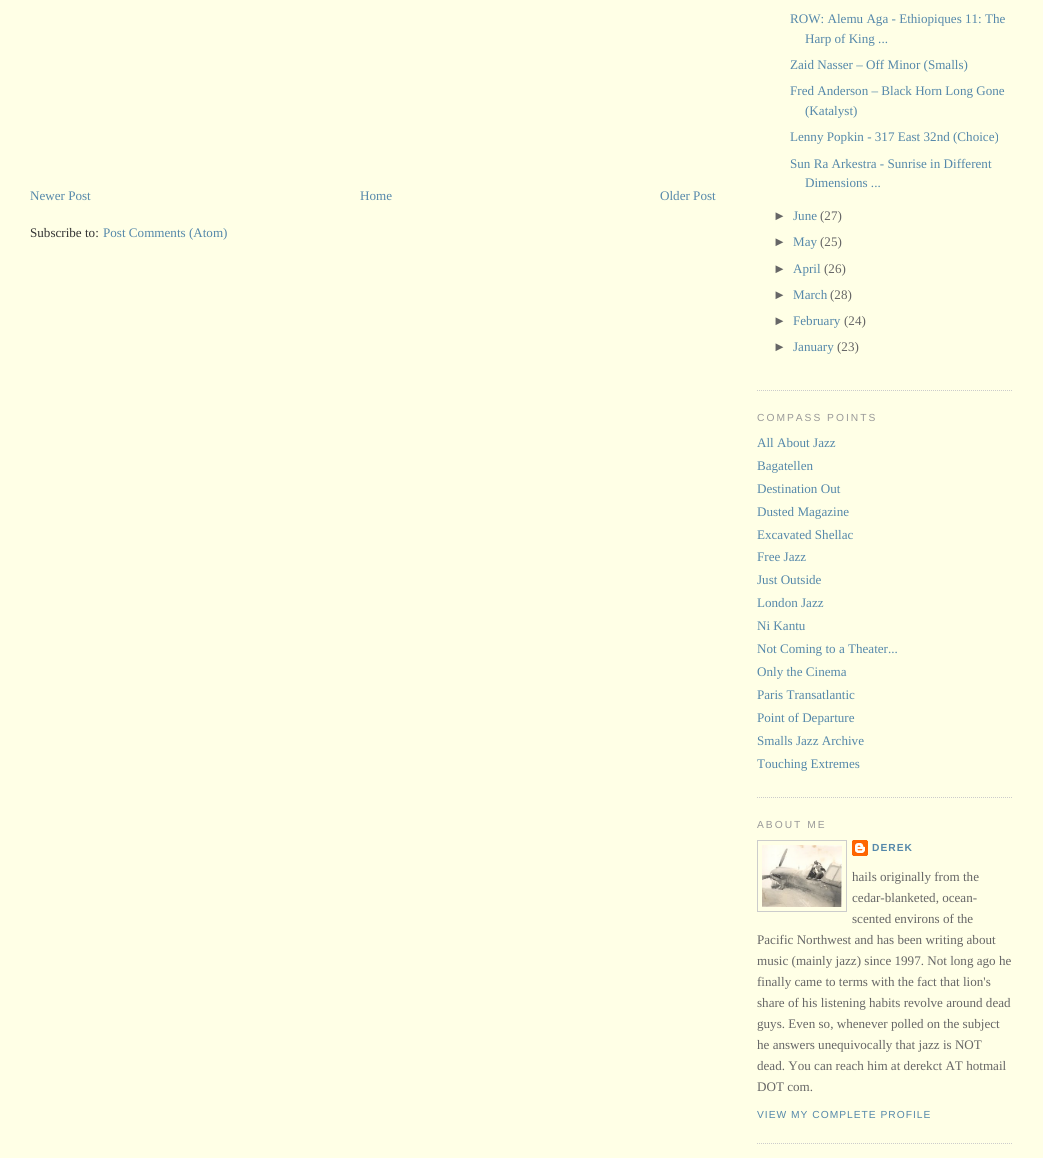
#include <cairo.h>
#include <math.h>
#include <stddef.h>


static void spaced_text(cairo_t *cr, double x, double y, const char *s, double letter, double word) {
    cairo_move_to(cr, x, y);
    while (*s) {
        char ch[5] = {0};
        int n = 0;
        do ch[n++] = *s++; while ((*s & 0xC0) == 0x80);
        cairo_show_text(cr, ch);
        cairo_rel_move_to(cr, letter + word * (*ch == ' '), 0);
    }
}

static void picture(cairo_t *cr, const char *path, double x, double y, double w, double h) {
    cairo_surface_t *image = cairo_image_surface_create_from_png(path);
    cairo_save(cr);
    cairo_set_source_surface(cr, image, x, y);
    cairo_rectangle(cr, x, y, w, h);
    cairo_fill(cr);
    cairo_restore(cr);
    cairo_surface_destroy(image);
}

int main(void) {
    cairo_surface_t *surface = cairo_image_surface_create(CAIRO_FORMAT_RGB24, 1043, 1158);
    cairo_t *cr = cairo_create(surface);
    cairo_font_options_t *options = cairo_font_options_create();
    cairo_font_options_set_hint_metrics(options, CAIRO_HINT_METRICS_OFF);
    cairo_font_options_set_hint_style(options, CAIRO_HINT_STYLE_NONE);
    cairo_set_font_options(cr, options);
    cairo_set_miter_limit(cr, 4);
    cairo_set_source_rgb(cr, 1, 1, 0.902);
    cairo_paint(cr);
    cairo_select_font_face(cr, "Liberation Serif", CAIRO_FONT_SLANT_NORMAL, CAIRO_FONT_WEIGHT_NORMAL);
    cairo_set_font_size(cr, 13.1);
    cairo_set_source_rgb(cr, 0.333, 0.533, 0.667);
    cairo_move_to(cr, 30, 200);
    cairo_show_text(cr, "Newer Post");
    cairo_move_to(cr, 360, 200);
    cairo_show_text(cr, "Home");
    cairo_move_to(cr, 660, 200);
    cairo_show_text(cr, "Older Post");
    cairo_set_source_rgb(cr, 0.2, 0.2, 0.2);
    cairo_move_to(cr, 30, 237);
    cairo_show_text(cr, "Subscribe to:");
    cairo_set_source_rgb(cr, 0.333, 0.533, 0.667);
    cairo_move_to(cr, 103, 237);
    cairo_show_text(cr, "Post Comments (Atom)");
    cairo_new_path(cr);
    cairo_move_to(cr, 757, 390.5);
    cairo_line_to(cr, 1013, 390.5);
    cairo_set_source_rgb(cr, 0.8, 0.8, 0.8);
    cairo_set_line_width(cr, 1);
    cairo_set_dash(cr, (double[]){1, 1}, 2, 0);
    cairo_stroke(cr);
    cairo_set_source_rgb(cr, 0.333, 0.533, 0.667);
    cairo_move_to(cr, 790, 23);
    cairo_show_text(cr, "ROW: Alemu Aga - Ethiopiques 11: The");
    cairo_move_to(cr, 805, 43);
    cairo_show_text(cr, "Harp of King ...");
    cairo_move_to(cr, 790, 69);
    cairo_show_text(cr, "Zaid Nasser – Off Minor (Smalls)");
    cairo_move_to(cr, 790, 95);
    cairo_show_text(cr, "Fred Anderson – Black Horn Long Gone");
    cairo_move_to(cr, 805, 115);
    cairo_show_text(cr, "(Katalyst)");
    cairo_move_to(cr, 790, 141);
    cairo_show_text(cr, "Lenny Popkin - 317 East 32nd (Choice)");
    cairo_move_to(cr, 790, 168);
    cairo_show_text(cr, "Sun Ra Arkestra - Sunrise in Different");
    cairo_move_to(cr, 805, 187);
    cairo_show_text(cr, "Dimensions ...");
    cairo_select_font_face(cr, "Liberation Sans", CAIRO_FONT_SLANT_NORMAL, CAIRO_FONT_WEIGHT_NORMAL);
    cairo_set_source_rgb(cr, 0.4, 0.4, 0.4);
    cairo_move_to(cr, 773, 220);
    cairo_show_text(cr, "►");
    cairo_select_font_face(cr, "Liberation Serif", CAIRO_FONT_SLANT_NORMAL, CAIRO_FONT_WEIGHT_NORMAL);
    cairo_set_source_rgb(cr, 0.333, 0.533, 0.667);
    cairo_move_to(cr, 793, 220);
    cairo_show_text(cr, "June");
    cairo_set_source_rgb(cr, 0.4, 0.4, 0.4);
    cairo_move_to(cr, 820, 220);
    cairo_show_text(cr, "(27)");
    cairo_select_font_face(cr, "Liberation Sans", CAIRO_FONT_SLANT_NORMAL, CAIRO_FONT_WEIGHT_NORMAL);
    cairo_move_to(cr, 773, 246);
    cairo_show_text(cr, "►");
    cairo_select_font_face(cr, "Liberation Serif", CAIRO_FONT_SLANT_NORMAL, CAIRO_FONT_WEIGHT_NORMAL);
    cairo_set_source_rgb(cr, 0.333, 0.533, 0.667);
    cairo_move_to(cr, 793, 246);
    cairo_show_text(cr, "May");
    cairo_set_source_rgb(cr, 0.4, 0.4, 0.4);
    cairo_move_to(cr, 820, 246);
    cairo_show_text(cr, "(25)");
    cairo_select_font_face(cr, "Liberation Sans", CAIRO_FONT_SLANT_NORMAL, CAIRO_FONT_WEIGHT_NORMAL);
    cairo_move_to(cr, 773, 273);
    cairo_show_text(cr, "►");
    cairo_select_font_face(cr, "Liberation Serif", CAIRO_FONT_SLANT_NORMAL, CAIRO_FONT_WEIGHT_NORMAL);
    cairo_set_source_rgb(cr, 0.333, 0.533, 0.667);
    cairo_move_to(cr, 793, 273);
    cairo_show_text(cr, "April");
    cairo_set_source_rgb(cr, 0.4, 0.4, 0.4);
    cairo_move_to(cr, 824, 273);
    cairo_show_text(cr, "(26)");
    cairo_select_font_face(cr, "Liberation Sans", CAIRO_FONT_SLANT_NORMAL, CAIRO_FONT_WEIGHT_NORMAL);
    cairo_move_to(cr, 773, 299);
    cairo_show_text(cr, "►");
    cairo_select_font_face(cr, "Liberation Serif", CAIRO_FONT_SLANT_NORMAL, CAIRO_FONT_WEIGHT_NORMAL);
    cairo_set_source_rgb(cr, 0.333, 0.533, 0.667);
    cairo_move_to(cr, 793, 299);
    cairo_show_text(cr, "March");
    cairo_set_source_rgb(cr, 0.4, 0.4, 0.4);
    cairo_move_to(cr, 830, 299);
    cairo_show_text(cr, "(28)");
    cairo_select_font_face(cr, "Liberation Sans", CAIRO_FONT_SLANT_NORMAL, CAIRO_FONT_WEIGHT_NORMAL);
    cairo_move_to(cr, 773, 325);
    cairo_show_text(cr, "►");
    cairo_select_font_face(cr, "Liberation Serif", CAIRO_FONT_SLANT_NORMAL, CAIRO_FONT_WEIGHT_NORMAL);
    cairo_set_source_rgb(cr, 0.333, 0.533, 0.667);
    cairo_move_to(cr, 793, 325);
    cairo_show_text(cr, "February");
    cairo_set_source_rgb(cr, 0.4, 0.4, 0.4);
    cairo_move_to(cr, 844, 325);
    cairo_show_text(cr, "(24)");
    cairo_select_font_face(cr, "Liberation Sans", CAIRO_FONT_SLANT_NORMAL, CAIRO_FONT_WEIGHT_NORMAL);
    cairo_move_to(cr, 773, 351);
    cairo_show_text(cr, "►");
    cairo_select_font_face(cr, "Liberation Serif", CAIRO_FONT_SLANT_NORMAL, CAIRO_FONT_WEIGHT_NORMAL);
    cairo_set_source_rgb(cr, 0.333, 0.533, 0.667);
    cairo_move_to(cr, 793, 351);
    cairo_show_text(cr, "January");
    cairo_set_source_rgb(cr, 0.4, 0.4, 0.4);
    cairo_move_to(cr, 837, 351);
    cairo_show_text(cr, "(23)");
    cairo_new_path(cr);
    cairo_move_to(cr, 757, 797.5);
    cairo_line_to(cr, 1013, 797.5);
    cairo_set_source_rgb(cr, 0.8, 0.8, 0.8);
    cairo_stroke(cr);
    cairo_select_font_face(cr, "Liberation Sans", CAIRO_FONT_SLANT_NORMAL, CAIRO_FONT_WEIGHT_NORMAL);
    cairo_set_font_size(cr, 10.25);
    cairo_set_source_rgb(cr, 0.6, 0.6, 0.6);
    spaced_text(cr, 757, 421, "COMPASS POINTS", 2, 0);
    cairo_select_font_face(cr, "Liberation Serif", CAIRO_FONT_SLANT_NORMAL, CAIRO_FONT_WEIGHT_NORMAL);
    cairo_set_font_size(cr, 13.1);
    cairo_set_source_rgb(cr, 0.333, 0.533, 0.667);
    cairo_move_to(cr, 757, 447);
    cairo_show_text(cr, "All About Jazz");
    cairo_move_to(cr, 757, 470);
    cairo_show_text(cr, "Bagatellen");
    cairo_move_to(cr, 757, 493);
    cairo_show_text(cr, "Destination Out");
    cairo_move_to(cr, 757, 516);
    cairo_show_text(cr, "Dusted Magazine");
    cairo_move_to(cr, 757, 539);
    cairo_show_text(cr, "Excavated Shellac");
    cairo_move_to(cr, 757, 561);
    cairo_show_text(cr, "Free Jazz");
    cairo_move_to(cr, 757, 584);
    cairo_show_text(cr, "Just Outside");
    cairo_move_to(cr, 757, 607);
    cairo_show_text(cr, "London Jazz");
    cairo_move_to(cr, 757, 630);
    cairo_show_text(cr, "Ni Kantu");
    cairo_move_to(cr, 757, 653);
    cairo_show_text(cr, "Not Coming to a Theater...");
    cairo_move_to(cr, 757, 676);
    cairo_show_text(cr, "Only the Cinema");
    cairo_move_to(cr, 757, 699);
    cairo_show_text(cr, "Paris Transatlantic");
    cairo_move_to(cr, 757, 722);
    cairo_show_text(cr, "Point of Departure");
    cairo_move_to(cr, 757, 745);
    cairo_show_text(cr, "Smalls Jazz Archive");
    cairo_move_to(cr, 757, 768);
    cairo_show_text(cr, "Touching Extremes");
    cairo_new_path(cr);
    cairo_move_to(cr, 757, 1143.5);
    cairo_line_to(cr, 1013, 1143.5);
    cairo_set_source_rgb(cr, 0.8, 0.8, 0.8);
    cairo_stroke(cr);
    cairo_select_font_face(cr, "Liberation Sans", CAIRO_FONT_SLANT_NORMAL, CAIRO_FONT_WEIGHT_NORMAL);
    cairo_set_font_size(cr, 10.25);
    cairo_set_source_rgb(cr, 0.6, 0.6, 0.6);
    spaced_text(cr, 757, 828, "ABOUT ME", 2, 0);
    cairo_rectangle(cr, 757.5, 840.5, 89, 71);
    cairo_set_source_rgb(cr, 0.8, 0.8, 0.8);
    cairo_set_dash(cr, NULL, 0, 0);
    cairo_stroke(cr);
    picture(cr, "img1.png", 762, 845, 80, 62);
    picture(cr, "img2.png", 852, 840, 16, 16);
    cairo_select_font_face(cr, "Liberation Sans", CAIRO_FONT_SLANT_NORMAL, CAIRO_FONT_WEIGHT_BOLD);
    cairo_set_source_rgb(cr, 0.333, 0.533, 0.667);
    spaced_text(cr, 872, 851, "DEREK", 1, 0);
    cairo_select_font_face(cr, "Liberation Serif", CAIRO_FONT_SLANT_NORMAL, CAIRO_FONT_WEIGHT_NORMAL);
    cairo_set_font_size(cr, 13.1);
    cairo_set_source_rgb(cr, 0.4, 0.4, 0.4);
    cairo_move_to(cr, 852, 881);
    cairo_show_text(cr, "hails originally from the");
    cairo_move_to(cr, 852, 902);
    cairo_show_text(cr, "cedar-blanketed, ocean-");
    cairo_move_to(cr, 852, 923);
    cairo_show_text(cr, "scented environs of the");
    cairo_move_to(cr, 757, 944);
    cairo_show_text(cr, "Pacific Northwest and has been writing about");
    cairo_move_to(cr, 757, 965);
    cairo_show_text(cr, "music (mainly jazz) since 1997. Not long ago he");
    cairo_move_to(cr, 757, 986);
    cairo_show_text(cr, "finally came to terms with the fact that lion's");
    cairo_move_to(cr, 757, 1007);
    cairo_show_text(cr, "share of his listening habits revolve around dead");
    cairo_move_to(cr, 757, 1028);
    cairo_show_text(cr, "guys. Even so, whenever polled on the subject");
    cairo_move_to(cr, 757, 1049);
    cairo_show_text(cr, "he answers unequivocally that jazz is NOT");
    cairo_move_to(cr, 757, 1070);
    cairo_show_text(cr, "dead. You can reach him at derekct AT hotmail");
    cairo_move_to(cr, 757, 1091);
    cairo_show_text(cr, "DOT com.");
    cairo_select_font_face(cr, "Liberation Sans", CAIRO_FONT_SLANT_NORMAL, CAIRO_FONT_WEIGHT_NORMAL);
    cairo_set_font_size(cr, 10.25);
    cairo_set_source_rgb(cr, 0.333, 0.533, 0.667);
    spaced_text(cr, 757, 1118, "VIEW MY COMPLETE PROFILE", 1, 0);
    cairo_surface_write_to_png(surface, "page.png");
    cairo_font_options_destroy(options);
    cairo_destroy(cr);
    cairo_surface_destroy(surface);
    return 0;
}
